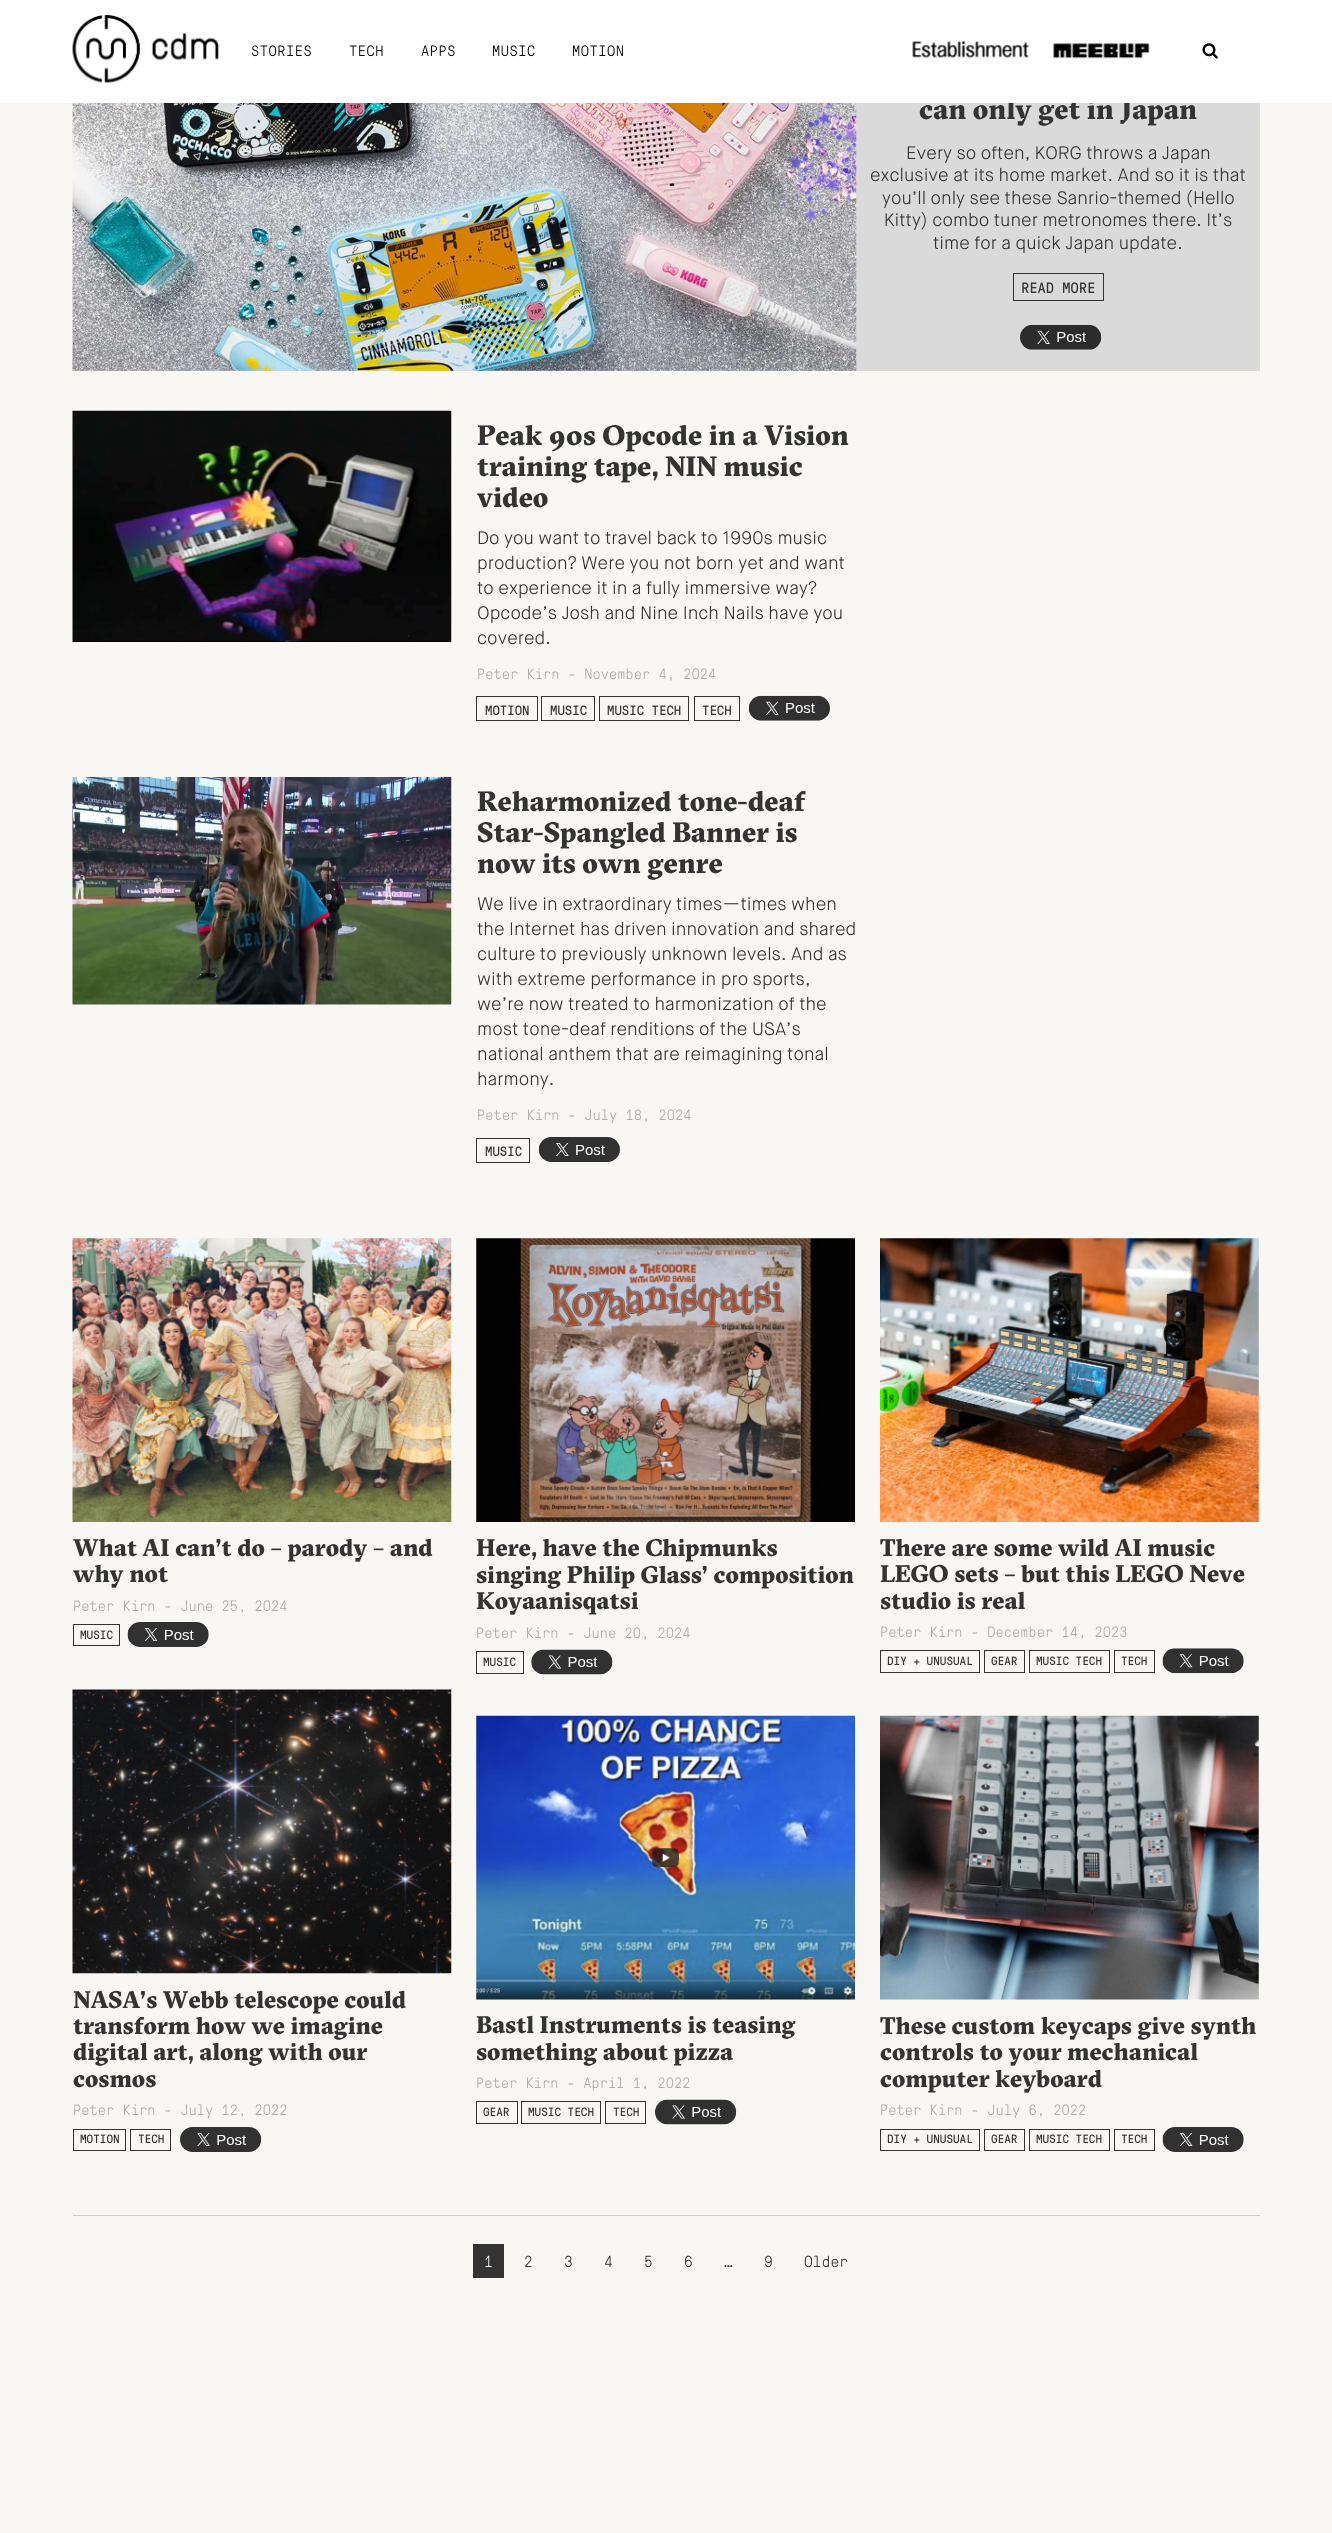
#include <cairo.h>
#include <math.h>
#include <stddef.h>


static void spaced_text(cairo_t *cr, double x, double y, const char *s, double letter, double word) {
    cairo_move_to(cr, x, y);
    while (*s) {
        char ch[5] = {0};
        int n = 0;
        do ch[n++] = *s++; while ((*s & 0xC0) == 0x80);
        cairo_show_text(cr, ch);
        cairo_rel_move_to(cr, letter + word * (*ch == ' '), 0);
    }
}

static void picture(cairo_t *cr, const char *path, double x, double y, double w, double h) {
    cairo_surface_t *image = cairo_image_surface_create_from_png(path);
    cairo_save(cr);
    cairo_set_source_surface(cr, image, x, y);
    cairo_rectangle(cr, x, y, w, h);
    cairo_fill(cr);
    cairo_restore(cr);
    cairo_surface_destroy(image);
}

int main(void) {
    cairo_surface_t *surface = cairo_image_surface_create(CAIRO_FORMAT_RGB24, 1332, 2533);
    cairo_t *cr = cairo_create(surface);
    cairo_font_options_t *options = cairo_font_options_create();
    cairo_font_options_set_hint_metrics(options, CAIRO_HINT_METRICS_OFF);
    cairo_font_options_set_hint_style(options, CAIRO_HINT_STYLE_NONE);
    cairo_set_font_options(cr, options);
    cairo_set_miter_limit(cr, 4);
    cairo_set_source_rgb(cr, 0.969, 0.965, 0.957);
    cairo_paint(cr);
    cairo_set_source_rgb(cr, 0.855, 0.855, 0.855);
    cairo_rectangle(cr, 73, 103, 1187, 268);
    cairo_fill(cr);
    cairo_select_font_face(cr, "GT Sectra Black", CAIRO_FONT_SLANT_NORMAL, CAIRO_FONT_WEIGHT_NORMAL);
    cairo_set_font_size(cr, 28);
    cairo_set_source_rgb(cr, 0.2, 0.2, 0.2);
    cairo_move_to(cr, 919, 119);
    cairo_show_text(cr, "can only get in Japan");
    cairo_set_source_rgb(cr, 1, 1, 1);
    cairo_rectangle(cr, 0, 0, 1332, 103);
    cairo_fill(cr);
    picture(cr, "img1.png", 72, 15, 147, 68);
    cairo_select_font_face(cr, "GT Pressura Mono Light", CAIRO_FONT_SLANT_NORMAL, CAIRO_FONT_WEIGHT_NORMAL);
    cairo_set_font_size(cr, 15);
    cairo_set_source_rgb(cr, 0, 0, 0);
    spaced_text(cr, 251, 56, "STORIES", 0.5, 0);
    spaced_text(cr, 349, 56, "TECH", 0.5, 0);
    spaced_text(cr, 421, 56, "APPS", 0.5, 0);
    spaced_text(cr, 492, 56, "MUSIC", 0.5, 0);
    spaced_text(cr, 572, 56, "MOTION", 0.5, 0);
    picture(cr, "img2.png", 912, 41, 118, 18);
    picture(cr, "img3.png", 1053, 43, 97, 16);
    picture(cr, "img4.png", 1202, 43, 16, 16);
    picture(cr, "img5.png", 72, 103, 785, 268);
    cairo_select_font_face(cr, "Maison Neue Light", CAIRO_FONT_SLANT_NORMAL, CAIRO_FONT_WEIGHT_NORMAL);
    cairo_set_font_size(cr, 18);
    cairo_set_source_rgb(cr, 0.2, 0.2, 0.2);
    cairo_move_to(cr, 906, 159);
    cairo_show_text(cr, "Every so often, KORG throws a Japan");
    cairo_move_to(cr, 870, 181);
    cairo_show_text(cr, "exclusive at its home market. And so it is that");
    cairo_move_to(cr, 882, 204);
    cairo_show_text(cr, "you’ll only see these Sanrio-themed (Hello");
    cairo_move_to(cr, 884, 226);
    cairo_show_text(cr, "Kitty) combo tuner metronomes there. It’s");
    cairo_move_to(cr, 933, 249);
    cairo_show_text(cr, "time for a quick Japan update.");
    cairo_rectangle(cr, 1013.5, 273.5, 90, 27);
    cairo_set_line_width(cr, 1);
    cairo_stroke(cr);
    cairo_select_font_face(cr, "GT Pressura Mono", CAIRO_FONT_SLANT_NORMAL, CAIRO_FONT_WEIGHT_NORMAL);
    cairo_set_font_size(cr, 15);
    cairo_move_to(cr, 1021, 293);
    cairo_show_text(cr, "READ MORE");
    picture(cr, "img6.png", 1020, 324, 82, 26);
    picture(cr, "img7.png", 72, 410, 380, 232);
    cairo_select_font_face(cr, "GT Sectra Black", CAIRO_FONT_SLANT_NORMAL, CAIRO_FONT_WEIGHT_NORMAL);
    cairo_set_font_size(cr, 28);
    cairo_move_to(cr, 477, 445);
    cairo_show_text(cr, "Peak 90s Opcode in a Vision");
    cairo_move_to(cr, 477, 476);
    cairo_show_text(cr, "training tape, NIN music");
    cairo_move_to(cr, 477, 507);
    cairo_show_text(cr, "video");
    cairo_select_font_face(cr, "Maison Neue Light", CAIRO_FONT_SLANT_NORMAL, CAIRO_FONT_WEIGHT_NORMAL);
    cairo_set_font_size(cr, 18);
    cairo_move_to(cr, 477, 544);
    cairo_show_text(cr, "Do you want to travel back to 1990s music");
    cairo_move_to(cr, 477, 569);
    cairo_show_text(cr, "production? Were you not born yet and want");
    cairo_move_to(cr, 477, 594);
    cairo_show_text(cr, "to experience it in a fully immersive way?");
    cairo_move_to(cr, 477, 619);
    cairo_show_text(cr, "Opcode’s Josh and Nine Inch Nails have you");
    cairo_move_to(cr, 477, 644);
    cairo_show_text(cr, "covered.");
    cairo_select_font_face(cr, "GT Pressura Mono Light", CAIRO_FONT_SLANT_NORMAL, CAIRO_FONT_WEIGHT_NORMAL);
    cairo_set_font_size(cr, 15);
    cairo_set_source_rgb(cr, 0.667, 0.667, 0.667);
    cairo_move_to(cr, 477, 679);
    cairo_show_text(cr, "Peter Kirn - November 4, 2024");
    cairo_rectangle(cr, 476.5, 696.5, 61, 24);
    cairo_set_source_rgb(cr, 0.2, 0.2, 0.2);
    cairo_stroke(cr);
    cairo_select_font_face(cr, "GT Pressura Mono", CAIRO_FONT_SLANT_NORMAL, CAIRO_FONT_WEIGHT_NORMAL);
    cairo_set_font_size(cr, 13.5);
    cairo_move_to(cr, 485, 715);
    cairo_show_text(cr, "MOTION");
    cairo_rectangle(cr, 541.5, 696.5, 53, 24);
    cairo_stroke(cr);
    cairo_move_to(cr, 550, 715);
    cairo_show_text(cr, "MUSIC");
    cairo_rectangle(cr, 599.5, 696.5, 89, 24);
    cairo_stroke(cr);
    cairo_move_to(cr, 607, 715);
    cairo_show_text(cr, "MUSIC TECH");
    cairo_rectangle(cr, 694.5, 696.5, 45, 24);
    cairo_stroke(cr);
    cairo_move_to(cr, 702, 715);
    cairo_show_text(cr, "TECH");
    picture(cr, "img8.png", 748, 695, 82, 26);
    picture(cr, "img9.png", 72, 777, 380, 228);
    cairo_select_font_face(cr, "GT Sectra Black", CAIRO_FONT_SLANT_NORMAL, CAIRO_FONT_WEIGHT_NORMAL);
    cairo_set_font_size(cr, 28);
    cairo_move_to(cr, 477, 811);
    cairo_show_text(cr, "Reharmonized tone-deaf");
    cairo_move_to(cr, 477, 842);
    cairo_show_text(cr, "Star-Spangled Banner is");
    cairo_move_to(cr, 477, 873);
    cairo_show_text(cr, "now its own genre");
    cairo_select_font_face(cr, "Maison Neue Light", CAIRO_FONT_SLANT_NORMAL, CAIRO_FONT_WEIGHT_NORMAL);
    cairo_set_font_size(cr, 18);
    cairo_move_to(cr, 477, 910);
    cairo_show_text(cr, "We live in extraordinary times—times when");
    cairo_move_to(cr, 477, 935);
    cairo_show_text(cr, "the Internet has driven innovation and shared");
    cairo_move_to(cr, 477, 960);
    cairo_show_text(cr, "culture to previously unknown levels. And as");
    cairo_move_to(cr, 477, 985);
    cairo_show_text(cr, "with extreme performance in pro sports,");
    cairo_move_to(cr, 477, 1010);
    cairo_show_text(cr, "we’re now treated to harmonization of the");
    cairo_move_to(cr, 477, 1035);
    cairo_show_text(cr, "most tone-deaf renditions of the USA’s");
    cairo_move_to(cr, 477, 1060);
    cairo_show_text(cr, "national anthem that are reimagining tonal");
    cairo_move_to(cr, 477, 1085);
    cairo_show_text(cr, "harmony.");
    cairo_select_font_face(cr, "GT Pressura Mono Light", CAIRO_FONT_SLANT_NORMAL, CAIRO_FONT_WEIGHT_NORMAL);
    cairo_set_font_size(cr, 15);
    cairo_set_source_rgb(cr, 0.667, 0.667, 0.667);
    cairo_move_to(cr, 477, 1120);
    cairo_show_text(cr, "Peter Kirn - July 18, 2024");
    cairo_rectangle(cr, 476.5, 1138.5, 53, 24);
    cairo_set_source_rgb(cr, 0.2, 0.2, 0.2);
    cairo_stroke(cr);
    cairo_select_font_face(cr, "GT Pressura Mono", CAIRO_FONT_SLANT_NORMAL, CAIRO_FONT_WEIGHT_NORMAL);
    cairo_set_font_size(cr, 13.5);
    cairo_move_to(cr, 485, 1156);
    cairo_show_text(cr, "MUSIC");
    picture(cr, "img10.png", 538, 1137, 82, 25);
    picture(cr, "img11.png", 72, 1238, 380, 284);
    cairo_select_font_face(cr, "GT Sectra Black", CAIRO_FONT_SLANT_NORMAL, CAIRO_FONT_WEIGHT_NORMAL);
    cairo_set_font_size(cr, 24);
    cairo_move_to(cr, 73, 1556);
    cairo_show_text(cr, "What AI can’t do – parody – and");
    cairo_move_to(cr, 73, 1582);
    cairo_show_text(cr, "why not");
    cairo_select_font_face(cr, "GT Pressura Mono Light", CAIRO_FONT_SLANT_NORMAL, CAIRO_FONT_WEIGHT_NORMAL);
    cairo_set_font_size(cr, 15);
    cairo_set_source_rgb(cr, 0.667, 0.667, 0.667);
    cairo_move_to(cr, 73, 1611);
    cairo_show_text(cr, "Peter Kirn - June 25, 2024");
    cairo_rectangle(cr, 73.5, 1624.5, 46, 21);
    cairo_set_source_rgb(cr, 0.2, 0.2, 0.2);
    cairo_stroke(cr);
    cairo_select_font_face(cr, "GT Pressura Mono", CAIRO_FONT_SLANT_NORMAL, CAIRO_FONT_WEIGHT_NORMAL);
    cairo_set_font_size(cr, 12);
    cairo_move_to(cr, 80, 1639);
    cairo_show_text(cr, "MUSIC");
    picture(cr, "img12.png", 127, 1622, 82, 25);
    picture(cr, "img13.png", 476, 1238, 379, 284);
    cairo_select_font_face(cr, "GT Sectra Black", CAIRO_FONT_SLANT_NORMAL, CAIRO_FONT_WEIGHT_NORMAL);
    cairo_set_font_size(cr, 24);
    cairo_move_to(cr, 476, 1556);
    cairo_show_text(cr, "Here, have the Chipmunks");
    cairo_move_to(cr, 476, 1583);
    cairo_show_text(cr, "singing Philip Glass’ composition");
    cairo_move_to(cr, 476, 1609);
    cairo_show_text(cr, "Koyaanisqatsi");
    cairo_select_font_face(cr, "GT Pressura Mono Light", CAIRO_FONT_SLANT_NORMAL, CAIRO_FONT_WEIGHT_NORMAL);
    cairo_set_font_size(cr, 15);
    cairo_set_source_rgb(cr, 0.667, 0.667, 0.667);
    cairo_move_to(cr, 476, 1638);
    cairo_show_text(cr, "Peter Kirn - June 20, 2024");
    cairo_rectangle(cr, 476.5, 1651.5, 47, 22);
    cairo_set_source_rgb(cr, 0.2, 0.2, 0.2);
    cairo_stroke(cr);
    cairo_select_font_face(cr, "GT Pressura Mono", CAIRO_FONT_SLANT_NORMAL, CAIRO_FONT_WEIGHT_NORMAL);
    cairo_set_font_size(cr, 12);
    cairo_move_to(cr, 483, 1666);
    cairo_show_text(cr, "MUSIC");
    picture(cr, "img14.png", 531, 1649, 82, 26);
    picture(cr, "img15.png", 880, 1238, 379, 284);
    cairo_select_font_face(cr, "GT Sectra Black", CAIRO_FONT_SLANT_NORMAL, CAIRO_FONT_WEIGHT_NORMAL);
    cairo_set_font_size(cr, 24);
    cairo_move_to(cr, 880, 1556);
    cairo_show_text(cr, "There are some wild AI music");
    cairo_move_to(cr, 880, 1582);
    cairo_show_text(cr, "LEGO sets – but this LEGO Neve");
    cairo_move_to(cr, 880, 1609);
    cairo_show_text(cr, "studio is real");
    cairo_select_font_face(cr, "GT Pressura Mono Light", CAIRO_FONT_SLANT_NORMAL, CAIRO_FONT_WEIGHT_NORMAL);
    cairo_set_font_size(cr, 15);
    cairo_set_source_rgb(cr, 0.667, 0.667, 0.667);
    cairo_move_to(cr, 880, 1637);
    cairo_show_text(cr, "Peter Kirn - December 14, 2023");
    cairo_rectangle(cr, 880.5, 1650.5, 99, 22);
    cairo_set_source_rgb(cr, 0.2, 0.2, 0.2);
    cairo_stroke(cr);
    cairo_select_font_face(cr, "GT Pressura Mono", CAIRO_FONT_SLANT_NORMAL, CAIRO_FONT_WEIGHT_NORMAL);
    cairo_set_font_size(cr, 12);
    cairo_move_to(cr, 887, 1665);
    cairo_show_text(cr, "DIY + UNUSUAL");
    cairo_rectangle(cr, 984.5, 1650.5, 40, 22);
    cairo_stroke(cr);
    cairo_move_to(cr, 991, 1665);
    cairo_show_text(cr, "GEAR");
    cairo_rectangle(cr, 1029.5, 1650.5, 80, 22);
    cairo_stroke(cr);
    cairo_move_to(cr, 1036, 1665);
    cairo_show_text(cr, "MUSIC TECH");
    cairo_rectangle(cr, 1114.5, 1650.5, 40, 22);
    cairo_stroke(cr);
    cairo_move_to(cr, 1121, 1665);
    cairo_show_text(cr, "TECH");
    picture(cr, "img16.png", 1162, 1648, 82, 26);
    picture(cr, "img17.png", 72, 1689, 380, 285);
    cairo_select_font_face(cr, "GT Sectra Black", CAIRO_FONT_SLANT_NORMAL, CAIRO_FONT_WEIGHT_NORMAL);
    cairo_set_font_size(cr, 24);
    cairo_move_to(cr, 73, 2008);
    cairo_show_text(cr, "NASA’s Webb telescope could");
    cairo_move_to(cr, 73, 2034);
    cairo_show_text(cr, "transform how we imagine");
    cairo_move_to(cr, 73, 2060);
    cairo_show_text(cr, "digital art, along with our");
    cairo_move_to(cr, 73, 2087);
    cairo_show_text(cr, "cosmos");
    cairo_select_font_face(cr, "GT Pressura Mono Light", CAIRO_FONT_SLANT_NORMAL, CAIRO_FONT_WEIGHT_NORMAL);
    cairo_set_font_size(cr, 15);
    cairo_set_source_rgb(cr, 0.667, 0.667, 0.667);
    cairo_move_to(cr, 73, 2115);
    cairo_show_text(cr, "Peter Kirn - July 12, 2022");
    cairo_rectangle(cr, 73.5, 2129.5, 52, 21);
    cairo_set_source_rgb(cr, 0.2, 0.2, 0.2);
    cairo_stroke(cr);
    cairo_select_font_face(cr, "GT Pressura Mono", CAIRO_FONT_SLANT_NORMAL, CAIRO_FONT_WEIGHT_NORMAL);
    cairo_set_font_size(cr, 12);
    cairo_move_to(cr, 80, 2143);
    cairo_show_text(cr, "MOTION");
    cairo_rectangle(cr, 130.5, 2129.5, 40, 21);
    cairo_stroke(cr);
    cairo_move_to(cr, 138, 2143);
    cairo_show_text(cr, "TECH");
    picture(cr, "img18.png", 180, 2127, 82, 25);
    picture(cr, "img19.png", 476, 1715, 379, 285);
    cairo_select_font_face(cr, "GT Sectra Black", CAIRO_FONT_SLANT_NORMAL, CAIRO_FONT_WEIGHT_NORMAL);
    cairo_set_font_size(cr, 24);
    cairo_move_to(cr, 476, 2033);
    cairo_show_text(cr, "Bastl Instruments is teasing");
    cairo_move_to(cr, 476, 2060);
    cairo_show_text(cr, "something about pizza");
    cairo_select_font_face(cr, "GT Pressura Mono Light", CAIRO_FONT_SLANT_NORMAL, CAIRO_FONT_WEIGHT_NORMAL);
    cairo_set_font_size(cr, 15);
    cairo_set_source_rgb(cr, 0.667, 0.667, 0.667);
    cairo_move_to(cr, 476, 2088);
    cairo_show_text(cr, "Peter Kirn - April 1, 2022");
    cairo_rectangle(cr, 476.5, 2101.5, 41, 22);
    cairo_set_source_rgb(cr, 0.2, 0.2, 0.2);
    cairo_stroke(cr);
    cairo_select_font_face(cr, "GT Pressura Mono", CAIRO_FONT_SLANT_NORMAL, CAIRO_FONT_WEIGHT_NORMAL);
    cairo_set_font_size(cr, 12);
    cairo_move_to(cr, 483, 2116);
    cairo_show_text(cr, "GEAR");
    cairo_rectangle(cr, 521.5, 2101.5, 79, 22);
    cairo_stroke(cr);
    cairo_move_to(cr, 528, 2116);
    cairo_show_text(cr, "MUSIC TECH");
    cairo_rectangle(cr, 605.5, 2101.5, 40, 22);
    cairo_stroke(cr);
    cairo_move_to(cr, 613, 2116);
    cairo_show_text(cr, "TECH");
    picture(cr, "img20.png", 655, 2099, 82, 26);
    picture(cr, "img21.png", 880, 1715, 379, 285);
    cairo_select_font_face(cr, "GT Sectra Black", CAIRO_FONT_SLANT_NORMAL, CAIRO_FONT_WEIGHT_NORMAL);
    cairo_set_font_size(cr, 24);
    cairo_move_to(cr, 880, 2034);
    cairo_show_text(cr, "These custom keycaps give synth");
    cairo_move_to(cr, 880, 2060);
    cairo_show_text(cr, "controls to your mechanical");
    cairo_move_to(cr, 880, 2087);
    cairo_show_text(cr, "computer keyboard");
    cairo_select_font_face(cr, "GT Pressura Mono Light", CAIRO_FONT_SLANT_NORMAL, CAIRO_FONT_WEIGHT_NORMAL);
    cairo_set_font_size(cr, 15);
    cairo_set_source_rgb(cr, 0.667, 0.667, 0.667);
    cairo_move_to(cr, 880, 2115);
    cairo_show_text(cr, "Peter Kirn - July 6, 2022");
    cairo_rectangle(cr, 880.5, 2129.5, 99, 21);
    cairo_set_source_rgb(cr, 0.2, 0.2, 0.2);
    cairo_stroke(cr);
    cairo_select_font_face(cr, "GT Pressura Mono", CAIRO_FONT_SLANT_NORMAL, CAIRO_FONT_WEIGHT_NORMAL);
    cairo_set_font_size(cr, 12);
    cairo_move_to(cr, 887, 2143);
    cairo_show_text(cr, "DIY + UNUSUAL");
    cairo_rectangle(cr, 984.5, 2129.5, 40, 21);
    cairo_stroke(cr);
    cairo_move_to(cr, 991, 2143);
    cairo_show_text(cr, "GEAR");
    cairo_rectangle(cr, 1029.5, 2129.5, 80, 21);
    cairo_stroke(cr);
    cairo_move_to(cr, 1036, 2143);
    cairo_show_text(cr, "MUSIC TECH");
    cairo_rectangle(cr, 1114.5, 2129.5, 40, 21);
    cairo_stroke(cr);
    cairo_move_to(cr, 1121, 2143);
    cairo_show_text(cr, "TECH");
    picture(cr, "img22.png", 1162, 2127, 82, 25);
    cairo_set_source_rgb(cr, 0.8, 0.8, 0.8);
    cairo_rectangle(cr, 73, 2215, 1187, 1);
    cairo_fill(cr);
    cairo_set_source_rgb(cr, 0.2, 0.2, 0.2);
    cairo_rectangle(cr, 473, 2244, 31, 34);
    cairo_fill(cr);
    cairo_select_font_face(cr, "GT Pressura Mono Light", CAIRO_FONT_SLANT_NORMAL, CAIRO_FONT_WEIGHT_NORMAL);
    cairo_set_font_size(cr, 16);
    cairo_set_source_rgb(cr, 1, 1, 1);
    cairo_move_to(cr, 484, 2267);
    cairo_show_text(cr, "1");
    cairo_set_source_rgb(cr, 0.2, 0.2, 0.2);
    cairo_move_to(cr, 524, 2267);
    cairo_show_text(cr, "2");
    cairo_move_to(cr, 564, 2267);
    cairo_show_text(cr, "3");
    cairo_move_to(cr, 604, 2267);
    cairo_show_text(cr, "4");
    cairo_move_to(cr, 644, 2267);
    cairo_show_text(cr, "5");
    cairo_move_to(cr, 684, 2267);
    cairo_show_text(cr, "6");
    cairo_move_to(cr, 724, 2267);
    cairo_show_text(cr, "…");
    cairo_move_to(cr, 764, 2267);
    cairo_show_text(cr, "9");
    cairo_move_to(cr, 804, 2267);
    cairo_show_text(cr, "Older");
    cairo_surface_write_to_png(surface, "page.png");
    cairo_font_options_destroy(options);
    cairo_destroy(cr);
    cairo_surface_destroy(surface);
    return 0;
}
